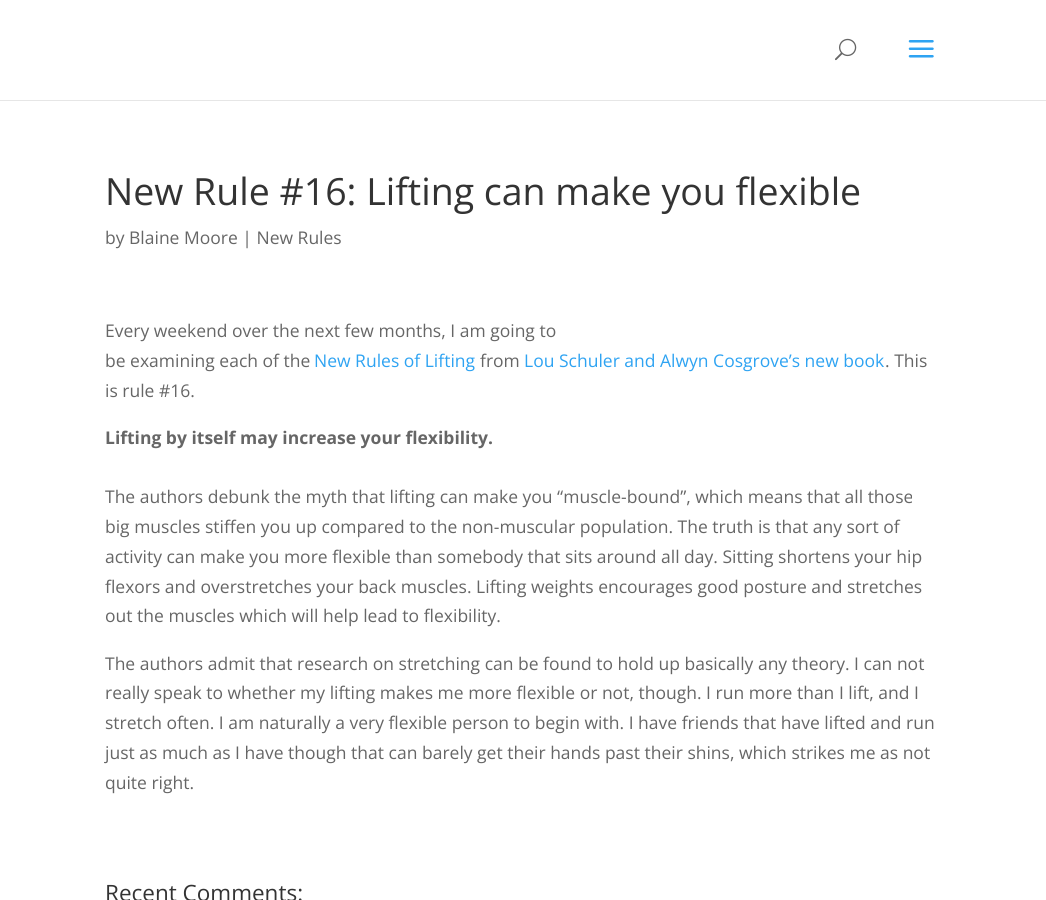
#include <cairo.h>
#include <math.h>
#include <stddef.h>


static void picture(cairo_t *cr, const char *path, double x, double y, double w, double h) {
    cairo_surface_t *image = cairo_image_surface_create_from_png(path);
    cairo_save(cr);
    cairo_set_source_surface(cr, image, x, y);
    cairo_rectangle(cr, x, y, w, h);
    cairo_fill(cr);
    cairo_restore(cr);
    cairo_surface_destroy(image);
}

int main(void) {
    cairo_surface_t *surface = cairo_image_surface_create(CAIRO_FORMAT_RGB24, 1046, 900);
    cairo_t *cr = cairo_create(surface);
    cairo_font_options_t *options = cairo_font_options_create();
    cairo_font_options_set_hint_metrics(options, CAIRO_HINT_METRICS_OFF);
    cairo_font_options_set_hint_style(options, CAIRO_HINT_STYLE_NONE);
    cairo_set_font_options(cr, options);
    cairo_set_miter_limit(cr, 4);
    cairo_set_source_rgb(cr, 1, 1, 1);
    cairo_paint(cr);
    cairo_set_source_rgb(cr, 0.902, 0.902, 0.902);
    cairo_rectangle(cr, 0, 100, 1046, 1);
    cairo_fill(cr);
    picture(cr, "img1.png", 835, 38, 22, 23);
    picture(cr, "img2.png", 908, 40, 26, 18);
    cairo_select_font_face(cr, "Open Sans", CAIRO_FONT_SLANT_NORMAL, CAIRO_FONT_WEIGHT_NORMAL);
    cairo_set_font_size(cr, 37.5);
    cairo_set_source_rgb(cr, 0.2, 0.2, 0.2);
    cairo_move_to(cr, 105, 205);
    cairo_show_text(cr, "New Rule #16: Lifting can make you flexible");
    cairo_set_font_size(cr, 17.5);
    cairo_set_source_rgb(cr, 0.4, 0.4, 0.4);
    cairo_move_to(cr, 105, 244);
    cairo_show_text(cr, "by Blaine Moore | New Rules");
    cairo_move_to(cr, 105, 337);
    cairo_show_text(cr, "Every weekend over the next few months, I am going to");
    cairo_move_to(cr, 105, 367);
    cairo_show_text(cr, "be examining each of the");
    cairo_set_source_rgb(cr, 0.18, 0.639, 0.949);
    cairo_move_to(cr, 314, 367);
    cairo_show_text(cr, "New Rules of Lifting");
    cairo_set_source_rgb(cr, 0.4, 0.4, 0.4);
    cairo_move_to(cr, 480, 367);
    cairo_show_text(cr, "from");
    cairo_set_source_rgb(cr, 0.18, 0.639, 0.949);
    cairo_move_to(cr, 524, 367);
    cairo_show_text(cr, "Lou Schuler and Alwyn Cosgrove’s new book");
    cairo_set_source_rgb(cr, 0.4, 0.4, 0.4);
    cairo_move_to(cr, 885, 367);
    cairo_show_text(cr, ". This");
    cairo_move_to(cr, 105, 397);
    cairo_show_text(cr, "is rule #16.");
    cairo_select_font_face(cr, "Open Sans", CAIRO_FONT_SLANT_NORMAL, CAIRO_FONT_WEIGHT_BOLD);
    cairo_move_to(cr, 105, 444);
    cairo_show_text(cr, "Lifting by itself may increase your flexibility.");
    cairo_select_font_face(cr, "Open Sans", CAIRO_FONT_SLANT_NORMAL, CAIRO_FONT_WEIGHT_NORMAL);
    cairo_move_to(cr, 105, 503);
    cairo_show_text(cr, "The authors debunk the myth that lifting can make you “muscle-bound”, which means that all those");
    cairo_move_to(cr, 105, 533);
    cairo_show_text(cr, "big muscles stiffen you up compared to the non-muscular population. The truth is that any sort of");
    cairo_move_to(cr, 105, 563);
    cairo_show_text(cr, "activity can make you more flexible than somebody that sits around all day. Sitting shortens your hip");
    cairo_move_to(cr, 105, 593);
    cairo_show_text(cr, "flexors and overstretches your back muscles. Lifting weights encourages good posture and stretches");
    cairo_move_to(cr, 105, 622);
    cairo_show_text(cr, "out the muscles which will help lead to flexibility.");
    cairo_move_to(cr, 105, 670);
    cairo_show_text(cr, "The authors admit that research on stretching can be found to hold up basically any theory. I can not");
    cairo_move_to(cr, 105, 699);
    cairo_show_text(cr, "really speak to whether my lifting makes me more flexible or not, though. I run more than I lift, and I");
    cairo_move_to(cr, 105, 729);
    cairo_show_text(cr, "stretch often. I am naturally a very flexible person to begin with. I have friends that have lifted and run");
    cairo_move_to(cr, 105, 759);
    cairo_show_text(cr, "just as much as I have though that can barely get their hands past their shins, which strikes me as not");
    cairo_move_to(cr, 105, 789);
    cairo_show_text(cr, "quite right.");
    cairo_set_font_size(cr, 22.5);
    cairo_set_source_rgb(cr, 0.2, 0.2, 0.2);
    cairo_move_to(cr, 105, 901);
    cairo_show_text(cr, "Recent Comments:");
    cairo_surface_write_to_png(surface, "page.png");
    cairo_font_options_destroy(options);
    cairo_destroy(cr);
    cairo_surface_destroy(surface);
    return 0;
}
